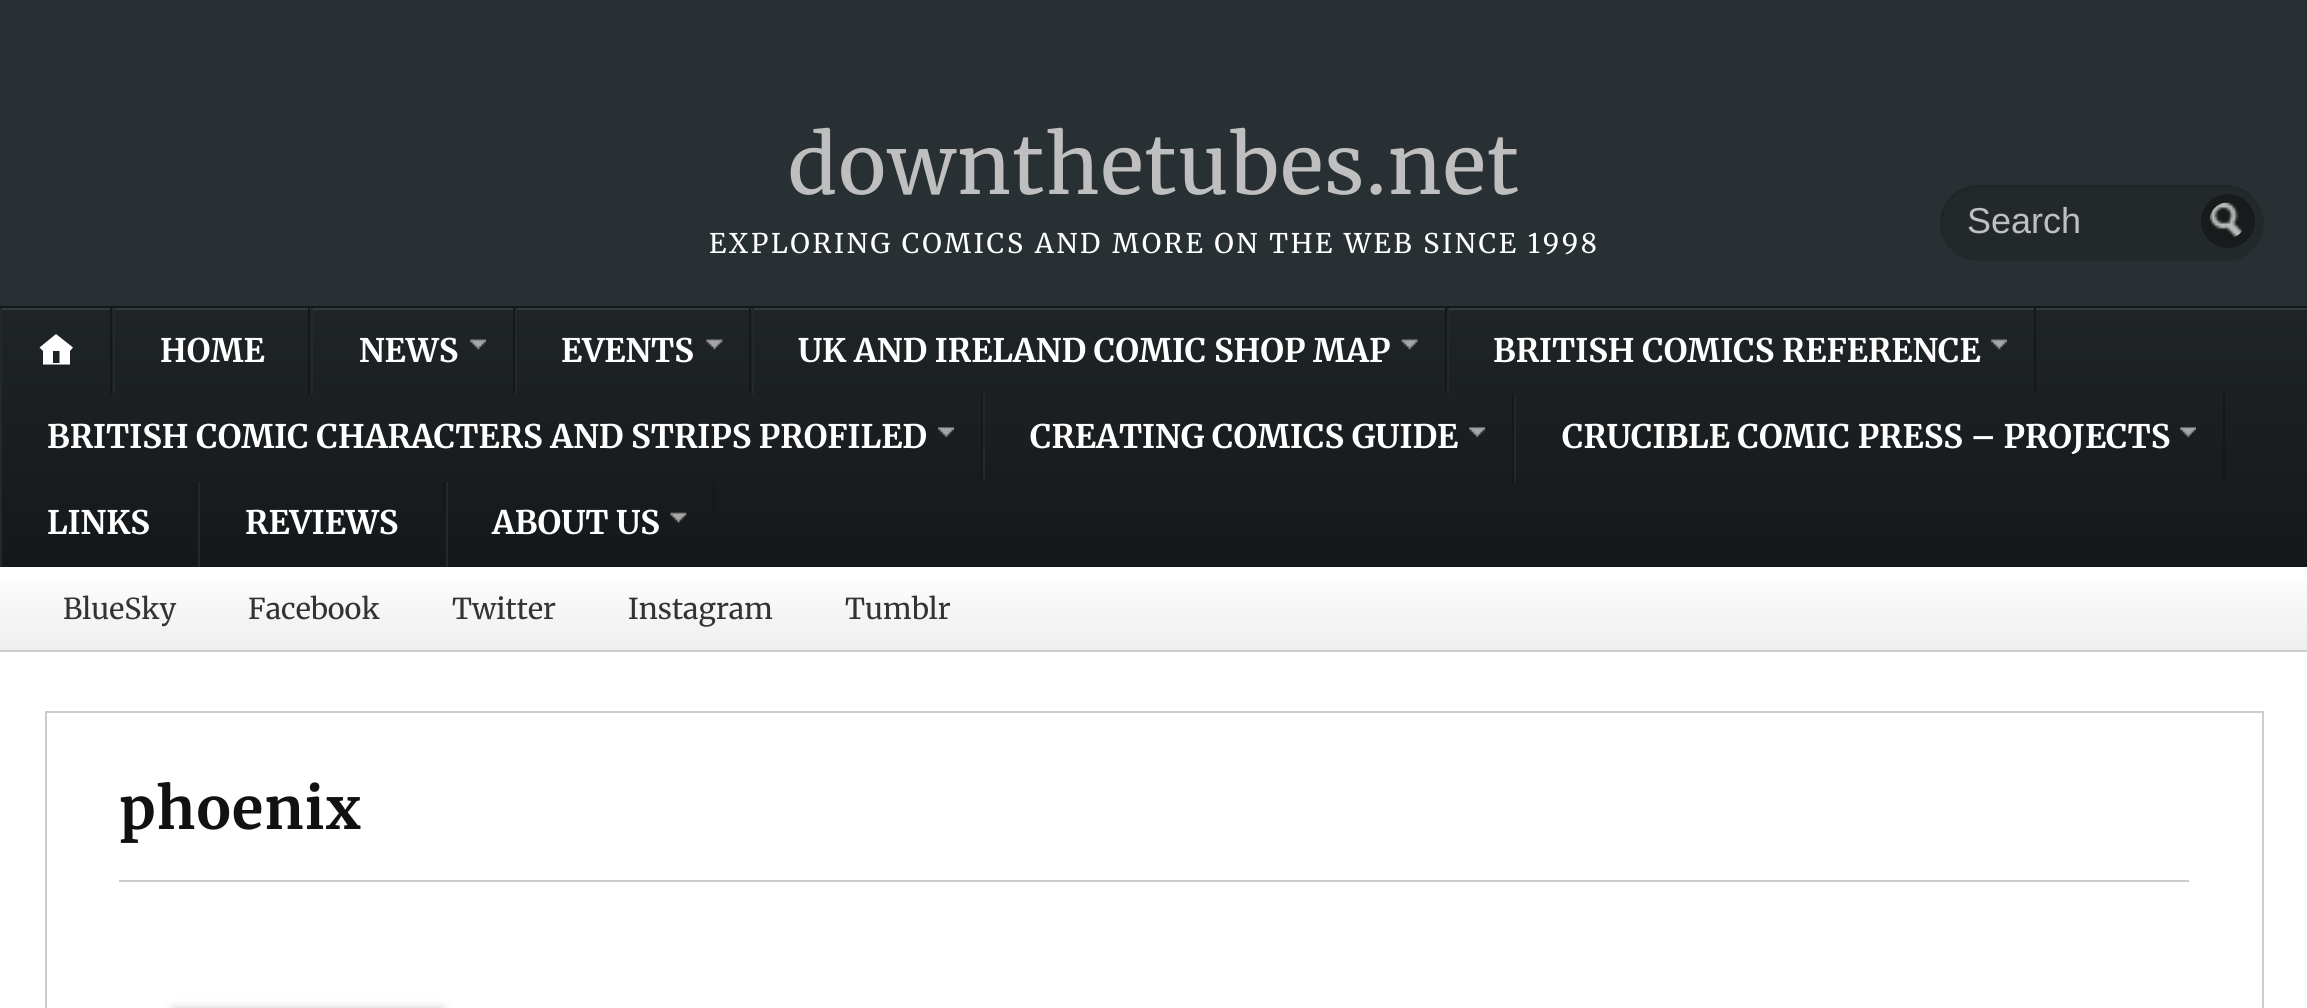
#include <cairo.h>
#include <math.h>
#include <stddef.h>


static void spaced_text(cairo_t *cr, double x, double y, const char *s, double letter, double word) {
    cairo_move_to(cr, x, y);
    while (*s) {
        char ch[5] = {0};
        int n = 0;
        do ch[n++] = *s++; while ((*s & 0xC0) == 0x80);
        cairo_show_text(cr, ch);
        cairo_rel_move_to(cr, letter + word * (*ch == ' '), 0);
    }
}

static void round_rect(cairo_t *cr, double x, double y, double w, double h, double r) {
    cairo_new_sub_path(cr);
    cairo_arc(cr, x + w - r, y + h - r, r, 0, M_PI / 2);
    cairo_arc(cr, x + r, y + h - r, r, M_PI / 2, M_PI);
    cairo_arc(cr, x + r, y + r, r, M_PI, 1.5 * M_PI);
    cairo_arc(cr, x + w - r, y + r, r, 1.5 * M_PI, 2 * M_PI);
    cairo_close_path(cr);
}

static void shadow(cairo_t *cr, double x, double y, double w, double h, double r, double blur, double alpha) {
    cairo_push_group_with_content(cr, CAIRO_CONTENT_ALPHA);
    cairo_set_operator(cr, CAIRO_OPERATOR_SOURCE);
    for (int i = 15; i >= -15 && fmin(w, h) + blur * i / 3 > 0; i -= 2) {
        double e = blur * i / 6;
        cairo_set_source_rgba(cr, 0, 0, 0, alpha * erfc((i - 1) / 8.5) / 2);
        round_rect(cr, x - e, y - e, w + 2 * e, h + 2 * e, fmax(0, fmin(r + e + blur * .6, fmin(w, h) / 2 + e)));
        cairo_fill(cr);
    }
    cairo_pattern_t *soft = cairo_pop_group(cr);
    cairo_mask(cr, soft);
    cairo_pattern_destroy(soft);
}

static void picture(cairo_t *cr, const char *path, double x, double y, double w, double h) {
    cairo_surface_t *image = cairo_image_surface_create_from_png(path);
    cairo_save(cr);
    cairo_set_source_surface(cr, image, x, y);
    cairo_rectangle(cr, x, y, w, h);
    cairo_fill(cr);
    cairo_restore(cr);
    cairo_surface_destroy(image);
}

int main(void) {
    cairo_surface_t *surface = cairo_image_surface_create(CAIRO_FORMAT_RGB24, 2307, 1008);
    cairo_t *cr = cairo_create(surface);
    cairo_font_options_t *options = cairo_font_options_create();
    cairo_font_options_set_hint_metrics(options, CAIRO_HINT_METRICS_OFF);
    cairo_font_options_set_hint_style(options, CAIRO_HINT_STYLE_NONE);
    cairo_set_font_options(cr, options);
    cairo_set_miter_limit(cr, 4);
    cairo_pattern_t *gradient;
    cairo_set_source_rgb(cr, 1, 1, 1);
    cairo_paint(cr);
    cairo_set_source_rgb(cr, 0.161, 0.188, 0.2);
    cairo_rectangle(cr, 0, 0, 2307, 306);
    cairo_fill(cr);
    cairo_select_font_face(cr, "Merriweather", CAIRO_FONT_SLANT_NORMAL, CAIRO_FONT_WEIGHT_NORMAL);
    cairo_set_font_size(cr, 81);
    cairo_set_source_rgb(cr, 0.749, 0.749, 0.749);
    spaced_text(cr, 788, 194, "downthetubes.net", 1.6, 0);
    cairo_set_font_size(cr, 27);
    cairo_set_source_rgb(cr, 1, 1, 1);
    spaced_text(cr, 709, 253, "EXPLORING COMICS AND MORE ON THE WEB SINCE 1998", 2.7, 0);
    cairo_set_source_rgb(cr, 0.137, 0.161, 0.169);
    round_rect(cr, 1940, 185, 324, 76, 38);
    cairo_fill(cr);
    cairo_set_source_rgba(cr, 0, 0, 0, 0.1);
    cairo_new_path(cr);
    cairo_move_to(cr, 1980, 187);
    cairo_line_to(cr, 2228, 187);
    cairo_curve_to(cr, 2238, 187, 2247, 191, 2254, 197);
    cairo_curve_to(cr, 2247, 190, 2237, 185, 2226, 185);
    cairo_line_to(cr, 1978, 185);
    cairo_curve_to(cr, 1957, 185, 1940, 202, 1940, 223);
    cairo_curve_to(cr, 1940, 234, 1945, 244, 1952, 251);
    cairo_curve_to(cr, 1930, 227, 1947, 187, 1980, 187);
    cairo_close_path(cr);
    cairo_fill(cr);
    cairo_select_font_face(cr, "Liberation Sans", CAIRO_FONT_SLANT_NORMAL, CAIRO_FONT_WEIGHT_NORMAL);
    cairo_set_font_size(cr, 36);
    cairo_set_source_rgb(cr, 0.749, 0.749, 0.749);
    cairo_move_to(cr, 1967, 233);
    cairo_show_text(cr, "Search");
    cairo_set_source_rgb(cr, 0.09, 0.106, 0.11);
    cairo_new_path(cr);
    cairo_arc(cr, 2228, 221, 27, 0, 2 * M_PI);
    cairo_fill(cr);
    picture(cr, "img1.png", 2209, 202, 34, 35);
    gradient = cairo_pattern_create_linear(1154, 49, 1154, 308);
    cairo_pattern_add_color_stop_rgba(gradient, 0, 0.122, 0.141, 0.149, 1);
    cairo_pattern_add_color_stop_rgba(gradient, 1, 0.082, 0.094, 0.102, 1);
    cairo_set_source(cr, gradient);
    cairo_pattern_destroy(gradient);
    cairo_rectangle(cr, 0, 306, 2307, 2);
    cairo_fill(cr);
    gradient = cairo_pattern_create_linear(1154, 308, 1154, 567);
    cairo_pattern_add_color_stop_rgba(gradient, 0, 0.122, 0.141, 0.149, 1);
    cairo_pattern_add_color_stop_rgba(gradient, 1, 0.082, 0.094, 0.102, 1);
    cairo_set_source(cr, gradient);
    cairo_pattern_destroy(gradient);
    cairo_rectangle(cr, 2, 310, 2305, 257);
    cairo_fill(cr);
    cairo_save(cr);
    cairo_rectangle(cr, 0, 308, 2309, 259);
    cairo_clip(cr);
    cairo_set_source_rgb(cr, 0.208, 0.227, 0.235);
    cairo_set_fill_rule(cr, CAIRO_FILL_RULE_EVEN_ODD);
    cairo_new_path(cr);
    cairo_move_to(cr, -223, 86);
    cairo_line_to(cr, 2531, 86);
    cairo_line_to(cr, 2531, 790);
    cairo_line_to(cr, -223, 790);
    cairo_close_path(cr);
    cairo_move_to(cr, 0, 310);
    cairo_line_to(cr, 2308, 310);
    cairo_curve_to(cr, 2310, 310, 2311, 312, 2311, 313);
    cairo_line_to(cr, 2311, 572);
    cairo_curve_to(cr, 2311, 573, 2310, 574, 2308, 574);
    cairo_line_to(cr, 0, 574);
    cairo_curve_to(cr, -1, 574, -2, 573, -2, 572);
    cairo_line_to(cr, -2, 313);
    cairo_curve_to(cr, -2, 312, -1, 310, 0, 310);
    cairo_close_path(cr);
    cairo_fill(cr);
    cairo_restore(cr);
    cairo_set_source_rgb(cr, 0.082, 0.094, 0.102);
    cairo_rectangle(cr, 110, 308, 2, 86);
    cairo_fill(cr);
    cairo_set_source_rgb(cr, 0.137, 0.161, 0.169);
    cairo_rectangle(cr, 0, 308, 2, 259);
    cairo_fill(cr);
    cairo_set_source_rgb(cr, 1, 1, 1);
    cairo_new_path(cr);
    cairo_move_to(cr, 56, 334);
    cairo_line_to(cr, 73, 347.5);
    cairo_line_to(cr, 70, 351);
    cairo_line_to(cr, 70, 364.5);
    cairo_line_to(cr, 43, 364.5);
    cairo_line_to(cr, 43, 351);
    cairo_line_to(cr, 39.5, 347.5);
    cairo_close_path(cr);
    cairo_move_to(cr, 59.5, 363);
    cairo_line_to(cr, 59.5, 351);
    cairo_line_to(cr, 53, 351);
    cairo_line_to(cr, 53, 363);
    cairo_close_path(cr);
    cairo_fill(cr);
    cairo_set_source_rgb(cr, 0.082, 0.094, 0.102);
    cairo_rectangle(cr, 308, 308, 2, 86);
    cairo_fill(cr);
    cairo_set_source_rgb(cr, 0.137, 0.161, 0.169);
    cairo_rectangle(cr, 113, 308, 2, 86);
    cairo_fill(cr);
    cairo_select_font_face(cr, "Merriweather", CAIRO_FONT_SLANT_NORMAL, CAIRO_FONT_WEIGHT_BOLD);
    cairo_set_font_size(cr, 32.4);
    cairo_set_source_rgb(cr, 1, 1, 1);
    cairo_move_to(cr, 160, 362);
    cairo_show_text(cr, "HOME");
    cairo_set_source_rgb(cr, 0.082, 0.094, 0.102);
    cairo_rectangle(cr, 513, 308, 2, 86);
    cairo_fill(cr);
    cairo_set_source_rgb(cr, 0.137, 0.161, 0.169);
    cairo_rectangle(cr, 311, 308, 2, 86);
    cairo_fill(cr);
    cairo_set_source_rgb(cr, 1, 1, 1);
    cairo_move_to(cr, 359, 362);
    cairo_show_text(cr, "NEWS");
    picture(cr, "img2.png", 470, 339, 16, 11);
    cairo_set_source_rgb(cr, 0.082, 0.094, 0.102);
    cairo_rectangle(cr, 749, 308, 2, 86);
    cairo_fill(cr);
    cairo_set_source_rgb(cr, 0.137, 0.161, 0.169);
    cairo_rectangle(cr, 515, 308, 2, 86);
    cairo_fill(cr);
    cairo_set_source_rgb(cr, 1, 1, 1);
    cairo_move_to(cr, 561, 362);
    cairo_show_text(cr, "EVENTS");
    picture(cr, "img3.png", 706, 339, 17, 11);
    cairo_set_source_rgb(cr, 0.082, 0.094, 0.102);
    cairo_rectangle(cr, 1445, 308, 2, 86);
    cairo_fill(cr);
    cairo_set_source_rgb(cr, 0.137, 0.161, 0.169);
    cairo_rectangle(cr, 752, 308, 2, 86);
    cairo_fill(cr);
    cairo_set_source_rgb(cr, 1, 1, 1);
    cairo_move_to(cr, 798, 362);
    cairo_show_text(cr, "UK AND IRELAND COMIC SHOP MAP");
    picture(cr, "img4.png", 1401, 339, 17, 11);
    cairo_set_source_rgb(cr, 0.082, 0.094, 0.102);
    cairo_rectangle(cr, 2034, 308, 2, 86);
    cairo_fill(cr);
    cairo_set_source_rgb(cr, 0.137, 0.161, 0.169);
    cairo_rectangle(cr, 1447, 308, 2, 86);
    cairo_fill(cr);
    cairo_set_source_rgb(cr, 1, 1, 1);
    cairo_move_to(cr, 1493, 362);
    cairo_show_text(cr, "BRITISH COMICS REFERENCE");
    picture(cr, "img5.png", 1991, 339, 16, 11);
    cairo_set_source_rgb(cr, 0.082, 0.094, 0.102);
    cairo_rectangle(cr, 981, 394, 2, 88);
    cairo_fill(cr);
    cairo_set_source_rgb(cr, 1, 1, 1);
    cairo_move_to(cr, 47, 448);
    cairo_show_text(cr, "BRITISH COMIC CHARACTERS AND STRIPS PROFILED");
    picture(cr, "img6.png", 938, 427, 16, 11);
    cairo_set_source_rgb(cr, 0.082, 0.094, 0.102);
    cairo_rectangle(cr, 1512, 394, 2, 88);
    cairo_fill(cr);
    cairo_set_source_rgb(cr, 0.137, 0.161, 0.169);
    cairo_rectangle(cr, 983, 394, 2, 88);
    cairo_fill(cr);
    cairo_set_source_rgb(cr, 1, 1, 1);
    cairo_move_to(cr, 1030, 448);
    cairo_show_text(cr, "CREATING COMICS GUIDE");
    picture(cr, "img6.png", 1469, 427, 16, 11);
    cairo_set_source_rgb(cr, 0.082, 0.094, 0.102);
    cairo_rectangle(cr, 2223, 394, 2, 88);
    cairo_fill(cr);
    cairo_set_source_rgb(cr, 0.137, 0.161, 0.169);
    cairo_rectangle(cr, 1514, 394, 2, 88);
    cairo_fill(cr);
    cairo_set_source_rgb(cr, 1, 1, 1);
    cairo_move_to(cr, 1562, 448);
    cairo_show_text(cr, "CRUCIBLE COMIC PRESS – PROJECTS");
    picture(cr, "img7.png", 2180, 427, 16, 11);
    cairo_set_source_rgb(cr, 0.082, 0.094, 0.102);
    cairo_rectangle(cr, 196, 482, 2, 31);
    cairo_fill(cr);
    cairo_set_source_rgb(cr, 1, 1, 1);
    cairo_move_to(cr, 47, 534);
    cairo_show_text(cr, "LINKS");
    cairo_set_source_rgb(cr, 0.082, 0.094, 0.102);
    cairo_rectangle(cr, 443, 482, 2, 31);
    cairo_fill(cr);
    cairo_set_source_rgb(cr, 0.137, 0.161, 0.169);
    cairo_rectangle(cr, 198, 482, 2, 85);
    cairo_fill(cr);
    cairo_set_source_rgb(cr, 1, 1, 1);
    cairo_move_to(cr, 245, 534);
    cairo_show_text(cr, "REVIEWS");
    cairo_set_source_rgb(cr, 0.082, 0.094, 0.102);
    cairo_rectangle(cr, 713, 482, 2, 31);
    cairo_fill(cr);
    cairo_set_source_rgb(cr, 0.137, 0.161, 0.169);
    cairo_rectangle(cr, 446, 482, 2, 85);
    cairo_fill(cr);
    cairo_set_source_rgb(cr, 1, 1, 1);
    cairo_move_to(cr, 492, 534);
    cairo_show_text(cr, "ABOUT US");
    picture(cr, "img8.png", 670, 512, 17, 11);
    gradient = cairo_pattern_create_linear(1154, 567, 1154, 650);
    cairo_pattern_add_color_stop_rgba(gradient, 0, 1, 1, 1, 1);
    cairo_pattern_add_color_stop_rgba(gradient, 1, 0.933, 0.933, 0.933, 1);
    cairo_set_source(cr, gradient);
    cairo_pattern_destroy(gradient);
    cairo_rectangle(cr, 0, 579, 2307, 71);
    cairo_fill(cr);
    cairo_set_source_rgb(cr, 0.8, 0.8, 0.8);
    cairo_rectangle(cr, 0, 650, 2307, 2);
    cairo_fill(cr);
    cairo_select_font_face(cr, "Merriweather", CAIRO_FONT_SLANT_NORMAL, CAIRO_FONT_WEIGHT_NORMAL);
    cairo_set_font_size(cr, 28.75);
    cairo_set_source_rgb(cr, 0.2, 0.2, 0.2);
    cairo_move_to(cr, 63, 619);
    cairo_show_text(cr, "BlueSky");
    cairo_move_to(cr, 248, 619);
    cairo_show_text(cr, "Facebook");
    cairo_move_to(cr, 452, 619);
    cairo_show_text(cr, "Twitter");
    cairo_move_to(cr, 628, 619);
    cairo_show_text(cr, "Instagram");
    cairo_move_to(cr, 845, 619);
    cairo_show_text(cr, "Tumblr");
    cairo_rectangle(cr, 46, 712, 2217, 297);
    cairo_set_source_rgb(cr, 0.8, 0.8, 0.8);
    cairo_stroke(cr);
    cairo_rectangle(cr, 119, 880, 2070, 2);
    cairo_fill(cr);
    cairo_select_font_face(cr, "Merriweather", CAIRO_FONT_SLANT_NORMAL, CAIRO_FONT_WEIGHT_BOLD);
    cairo_set_font_size(cr, 57.5);
    cairo_set_source_rgb(cr, 0.067, 0.067, 0.067);
    spaced_text(cr, 119, 829, "phoenix", 1.25, 0);
    cairo_set_source_rgb(cr, 0, 0, 0);
    shadow(cr, 173, 1008, 270, 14, 0, 4.5, 0.2);
    cairo_surface_write_to_png(surface, "page.png");
    cairo_font_options_destroy(options);
    cairo_destroy(cr);
    cairo_surface_destroy(surface);
    return 0;
}
